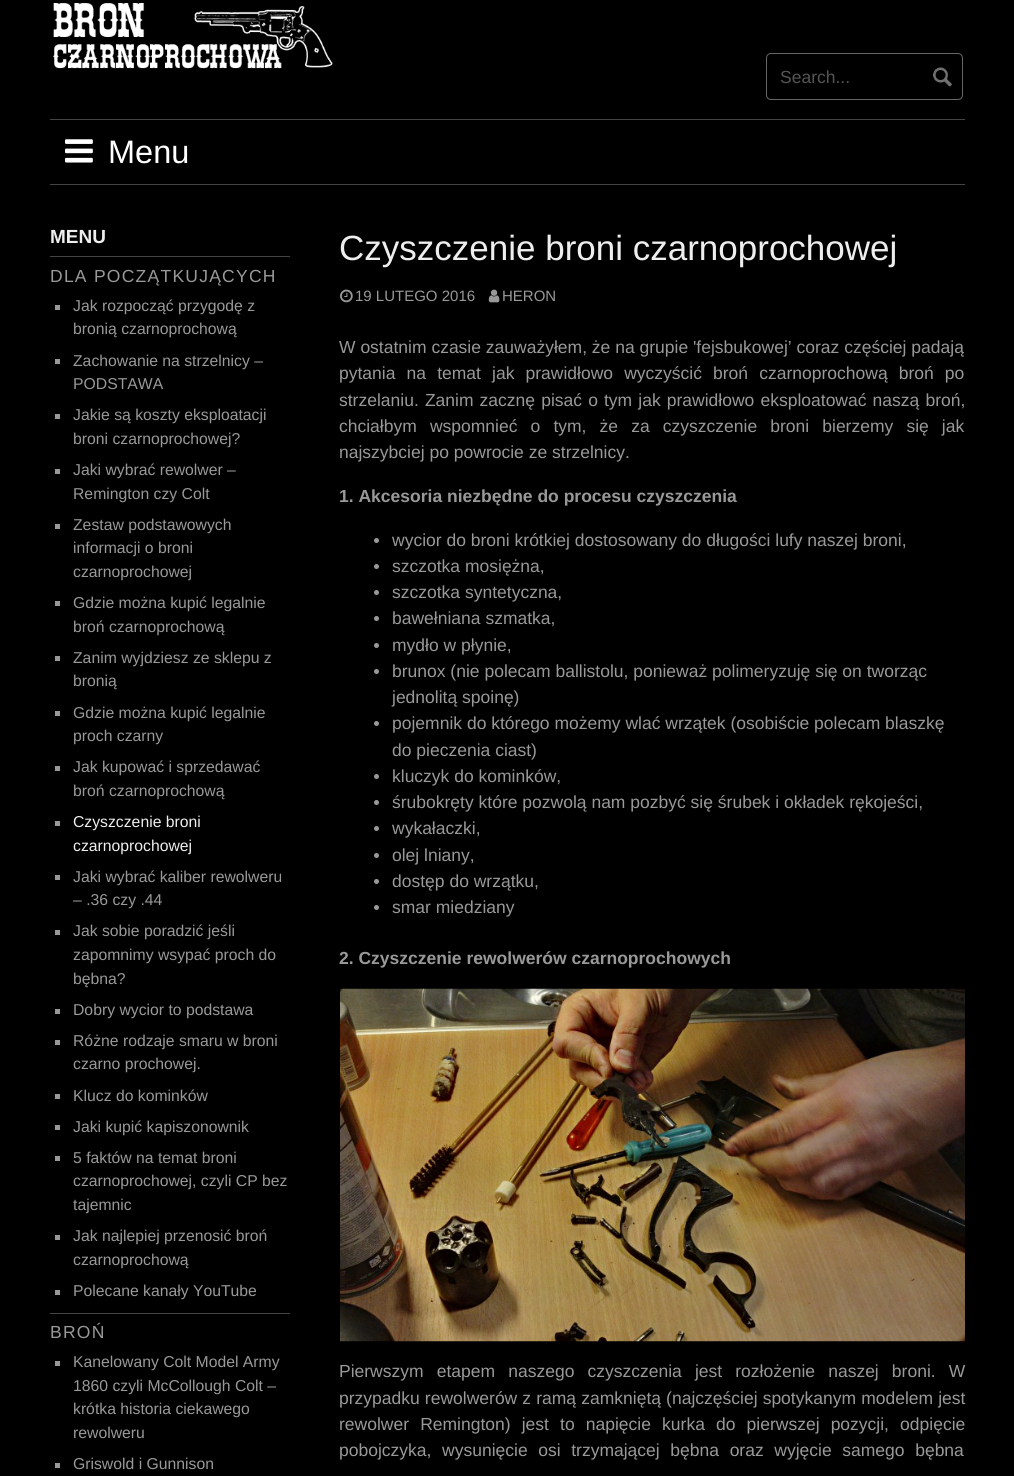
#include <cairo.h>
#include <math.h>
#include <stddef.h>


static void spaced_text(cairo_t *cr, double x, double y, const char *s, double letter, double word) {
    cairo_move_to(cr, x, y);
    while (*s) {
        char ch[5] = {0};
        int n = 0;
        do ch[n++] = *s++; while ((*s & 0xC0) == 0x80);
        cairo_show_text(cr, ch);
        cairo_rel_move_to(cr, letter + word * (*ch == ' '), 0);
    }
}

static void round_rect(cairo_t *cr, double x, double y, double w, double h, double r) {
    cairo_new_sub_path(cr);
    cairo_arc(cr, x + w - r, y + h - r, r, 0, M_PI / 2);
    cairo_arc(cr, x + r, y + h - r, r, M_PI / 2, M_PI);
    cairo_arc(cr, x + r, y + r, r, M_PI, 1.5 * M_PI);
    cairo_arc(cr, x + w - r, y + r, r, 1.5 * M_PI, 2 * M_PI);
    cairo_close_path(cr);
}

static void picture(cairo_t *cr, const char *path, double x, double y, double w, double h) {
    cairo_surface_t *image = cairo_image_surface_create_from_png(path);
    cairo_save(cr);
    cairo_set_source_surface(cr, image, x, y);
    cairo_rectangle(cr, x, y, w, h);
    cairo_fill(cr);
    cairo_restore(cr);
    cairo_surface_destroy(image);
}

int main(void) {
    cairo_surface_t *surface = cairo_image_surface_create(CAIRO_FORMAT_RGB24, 1014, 1476);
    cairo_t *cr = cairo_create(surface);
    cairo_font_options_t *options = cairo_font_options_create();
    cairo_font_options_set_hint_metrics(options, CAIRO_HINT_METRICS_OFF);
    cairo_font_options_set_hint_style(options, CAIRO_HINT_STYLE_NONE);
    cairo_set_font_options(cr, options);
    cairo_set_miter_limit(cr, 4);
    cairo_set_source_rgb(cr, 0, 0, 0);
    cairo_paint(cr);
    picture(cr, "img1.png", 53, 3, 280, 66);
    round_rect(cr, 766.5, 53.5, 196, 46, 4.5);
    cairo_set_source_rgb(cr, 0.4, 0.4, 0.4);
    cairo_set_line_width(cr, 1);
    cairo_stroke(cr);
    cairo_select_font_face(cr, "Liberation Sans", CAIRO_FONT_SLANT_NORMAL, CAIRO_FONT_WEIGHT_NORMAL);
    cairo_set_font_size(cr, 17.5);
    cairo_set_source_rgb(cr, 0.333, 0.333, 0.333);
    cairo_move_to(cr, 780, 83);
    cairo_show_text(cr, "Search...");
    picture(cr, "img2.png", 933, 67, 19, 20);
    cairo_set_source_rgb(cr, 0.267, 0.267, 0.267);
    cairo_rectangle(cr, 50, 119, 915, 1);
    cairo_fill(cr);
    cairo_rectangle(cr, 50, 184, 915, 1);
    cairo_fill(cr);
    picture(cr, "img3.png", 65, 139, 28, 24);
    cairo_set_font_size(cr, 32.5);
    cairo_set_source_rgb(cr, 1, 1, 1);
    cairo_move_to(cr, 108, 163);
    cairo_show_text(cr, "Menu");
    cairo_set_source_rgb(cr, 0.267, 0.267, 0.267);
    cairo_rectangle(cr, 50, 256, 240, 1);
    cairo_fill(cr);
    cairo_select_font_face(cr, "Liberation Sans", CAIRO_FONT_SLANT_NORMAL, CAIRO_FONT_WEIGHT_BOLD);
    cairo_set_font_size(cr, 19);
    cairo_set_source_rgb(cr, 0.933, 0.933, 0.933);
    cairo_move_to(cr, 50, 243);
    cairo_show_text(cr, "MENU");
    cairo_set_source_rgb(cr, 0.267, 0.267, 0.267);
    cairo_rectangle(cr, 50, 1313, 240, 1);
    cairo_fill(cr);
    cairo_select_font_face(cr, "Liberation Sans", CAIRO_FONT_SLANT_NORMAL, CAIRO_FONT_WEIGHT_NORMAL);
    cairo_set_font_size(cr, 17.5);
    cairo_set_source_rgb(cr, 0.6, 0.6, 0.6);
    spaced_text(cr, 50, 282, "DLA POCZĄTKUJĄCYCH", 1.25, 0);
    cairo_rectangle(cr, 55, 305, 5, 5);
    cairo_fill(cr);
    cairo_set_font_size(cr, 15.75);
    cairo_move_to(cr, 73, 311);
    cairo_show_text(cr, "Jak rozpocząć przygodę z");
    cairo_move_to(cr, 73, 334);
    cairo_show_text(cr, "bronią czarnoprochową");
    cairo_rectangle(cr, 55, 359, 5, 5);
    cairo_fill(cr);
    cairo_move_to(cr, 73, 366);
    cairo_show_text(cr, "Zachowanie na strzelnicy –");
    cairo_move_to(cr, 73, 389);
    cairo_show_text(cr, "PODSTAWA");
    cairo_rectangle(cr, 55, 414, 5, 5);
    cairo_fill(cr);
    cairo_move_to(cr, 73, 420);
    cairo_show_text(cr, "Jakie są koszty eksploatacji");
    cairo_move_to(cr, 73, 444);
    cairo_show_text(cr, "broni czarnoprochowej?");
    cairo_rectangle(cr, 55, 469, 5, 5);
    cairo_fill(cr);
    cairo_move_to(cr, 73, 475);
    cairo_show_text(cr, "Jaki wybrać rewolwer –");
    cairo_move_to(cr, 73, 499);
    cairo_show_text(cr, "Remington czy Colt");
    cairo_rectangle(cr, 55, 524, 5, 5);
    cairo_fill(cr);
    cairo_move_to(cr, 73, 530);
    cairo_show_text(cr, "Zestaw podstawowych");
    cairo_move_to(cr, 73, 553);
    cairo_show_text(cr, "informacji o broni");
    cairo_move_to(cr, 73, 577);
    cairo_show_text(cr, "czarnoprochowej");
    cairo_rectangle(cr, 55, 601, 5, 5);
    cairo_fill(cr);
    cairo_move_to(cr, 73, 608);
    cairo_show_text(cr, "Gdzie można kupić legalnie");
    cairo_move_to(cr, 73, 632);
    cairo_show_text(cr, "broń czarnoprochową");
    cairo_rectangle(cr, 55, 656, 5, 5);
    cairo_fill(cr);
    cairo_move_to(cr, 73, 663);
    cairo_show_text(cr, "Zanim wyjdziesz ze sklepu z");
    cairo_move_to(cr, 73, 686);
    cairo_show_text(cr, "bronią");
    cairo_rectangle(cr, 55, 711, 5, 5);
    cairo_fill(cr);
    cairo_move_to(cr, 73, 718);
    cairo_show_text(cr, "Gdzie można kupić legalnie");
    cairo_move_to(cr, 73, 741);
    cairo_show_text(cr, "proch czarny");
    cairo_rectangle(cr, 55, 766, 5, 5);
    cairo_fill(cr);
    cairo_move_to(cr, 73, 772);
    cairo_show_text(cr, "Jak kupować i sprzedawać");
    cairo_move_to(cr, 73, 796);
    cairo_show_text(cr, "broń czarnoprochową");
    cairo_rectangle(cr, 55, 821, 5, 5);
    cairo_fill(cr);
    cairo_set_source_rgb(cr, 0.933, 0.933, 0.933);
    cairo_move_to(cr, 73, 827);
    cairo_show_text(cr, "Czyszczenie broni");
    cairo_move_to(cr, 73, 851);
    cairo_show_text(cr, "czarnoprochowej");
    cairo_set_source_rgb(cr, 0.6, 0.6, 0.6);
    cairo_rectangle(cr, 55, 875, 5, 5);
    cairo_fill(cr);
    cairo_move_to(cr, 73, 882);
    cairo_show_text(cr, "Jaki wybrać kaliber rewolweru");
    cairo_move_to(cr, 73, 905);
    cairo_show_text(cr, "– .36 czy .44");
    cairo_rectangle(cr, 55, 930, 5, 5);
    cairo_fill(cr);
    cairo_move_to(cr, 73, 936);
    cairo_show_text(cr, "Jak sobie poradzić jeśli");
    cairo_move_to(cr, 73, 960);
    cairo_show_text(cr, "zapomnimy wsypać proch do");
    cairo_move_to(cr, 73, 984);
    cairo_show_text(cr, "bębna?");
    cairo_rectangle(cr, 55, 1009, 5, 5);
    cairo_fill(cr);
    cairo_move_to(cr, 73, 1015);
    cairo_show_text(cr, "Dobry wycior to podstawa");
    cairo_rectangle(cr, 55, 1040, 5, 5);
    cairo_fill(cr);
    cairo_move_to(cr, 73, 1046);
    cairo_show_text(cr, "Różne rodzaje smaru w broni");
    cairo_move_to(cr, 73, 1069);
    cairo_show_text(cr, "czarno prochowej.");
    cairo_rectangle(cr, 55, 1094, 5, 5);
    cairo_fill(cr);
    cairo_move_to(cr, 73, 1101);
    cairo_show_text(cr, "Klucz do kominków");
    cairo_rectangle(cr, 55, 1125, 5, 5);
    cairo_fill(cr);
    cairo_move_to(cr, 73, 1132);
    cairo_show_text(cr, "Jaki kupić kapiszonownik");
    cairo_rectangle(cr, 55, 1156, 5, 5);
    cairo_fill(cr);
    cairo_move_to(cr, 73, 1163);
    cairo_show_text(cr, "5 faktów na temat broni");
    cairo_move_to(cr, 73, 1186);
    cairo_show_text(cr, "czarnoprochowej, czyli CP bez");
    cairo_move_to(cr, 73, 1210);
    cairo_show_text(cr, "tajemnic");
    cairo_rectangle(cr, 55, 1235, 5, 5);
    cairo_fill(cr);
    cairo_move_to(cr, 73, 1241);
    cairo_show_text(cr, "Jak najlepiej przenosić broń");
    cairo_move_to(cr, 73, 1265);
    cairo_show_text(cr, "czarnoprochową");
    cairo_rectangle(cr, 55, 1290, 5, 5);
    cairo_fill(cr);
    cairo_move_to(cr, 73, 1296);
    cairo_show_text(cr, "Polecane kanały YouTube");
    cairo_set_font_size(cr, 17.5);
    spaced_text(cr, 50, 1338, "BROŃ", 1.25, 0);
    cairo_rectangle(cr, 55, 1361, 5, 5);
    cairo_fill(cr);
    cairo_set_font_size(cr, 15.75);
    cairo_move_to(cr, 73, 1367);
    cairo_show_text(cr, "Kanelowany Colt Model Army");
    cairo_move_to(cr, 73, 1391);
    cairo_show_text(cr, "1860 czyli McCollough Colt –");
    cairo_move_to(cr, 73, 1414);
    cairo_show_text(cr, "krótka historia ciekawego");
    cairo_move_to(cr, 73, 1438);
    cairo_show_text(cr, "rewolweru");
    cairo_rectangle(cr, 55, 1463, 5, 5);
    cairo_fill(cr);
    cairo_move_to(cr, 73, 1469);
    cairo_show_text(cr, "Griswold i Gunnison");
    cairo_set_font_size(cr, 35);
    cairo_set_source_rgb(cr, 0.933, 0.933, 0.933);
    cairo_move_to(cr, 339, 260);
    cairo_show_text(cr, "Czyszczenie broni czarnoprochowej");
    picture(cr, "img4.png", 340, 289, 13, 14);
    cairo_set_font_size(cr, 15);
    cairo_set_source_rgb(cr, 0.6, 0.6, 0.6);
    cairo_move_to(cr, 355, 301);
    cairo_show_text(cr, "19 LUTEGO 2016");
    picture(cr, "img5.png", 488, 289, 12, 14);
    cairo_move_to(cr, 502, 301);
    cairo_show_text(cr, "HERON");
    cairo_set_font_size(cr, 17.5);
    cairo_move_to(cr, 339, 353);
    cairo_show_text(cr, "W ostatnim czasie zauważyłem, że na grupie 'fejsbukowej’ coraz częściej padają");
    spaced_text(cr, 339, 379, "pytania na temat jak prawidłowo wyczyścić broń czarnoprochową broń po", 0, 6.25);
    spaced_text(cr, 339, 406, "strzelaniu. Zanim zacznę pisać o tym jak prawidłowo eksploatować naszą broń,", 0, 1.25);
    spaced_text(cr, 339, 432, "chciałbym wspomnieć o tym, że za czyszczenie broni bierzemy się jak", 0, 8.25);
    cairo_move_to(cr, 339, 458);
    cairo_show_text(cr, "najszybciej po powrocie ze strzelnicy.");
    cairo_select_font_face(cr, "Liberation Sans", CAIRO_FONT_SLANT_NORMAL, CAIRO_FONT_WEIGHT_BOLD);
    cairo_move_to(cr, 339, 502);
    cairo_show_text(cr, "1. Akcesoria niezbędne do procesu czyszczenia");
    cairo_new_path(cr);
    cairo_arc(cr, 376.5, 540.5, 2.5, 0, 2 * M_PI);
    cairo_fill(cr);
    cairo_select_font_face(cr, "Liberation Sans", CAIRO_FONT_SLANT_NORMAL, CAIRO_FONT_WEIGHT_NORMAL);
    cairo_move_to(cr, 392, 546);
    cairo_show_text(cr, "wycior do broni krótkiej dostosowany do długości lufy naszej broni,");
    cairo_new_path(cr);
    cairo_arc(cr, 376.5, 566.5, 2.5, 0, 2 * M_PI);
    cairo_fill(cr);
    cairo_move_to(cr, 392, 572);
    cairo_show_text(cr, "szczotka mosiężna,");
    cairo_new_path(cr);
    cairo_arc(cr, 376.5, 592.5, 2.5, 0, 2 * M_PI);
    cairo_fill(cr);
    cairo_move_to(cr, 392, 598);
    cairo_show_text(cr, "szczotka syntetyczna,");
    cairo_new_path(cr);
    cairo_arc(cr, 376.5, 618.5, 2.5, 0, 2 * M_PI);
    cairo_fill(cr);
    cairo_move_to(cr, 392, 624);
    cairo_show_text(cr, "bawełniana szmatka,");
    cairo_new_path(cr);
    cairo_arc(cr, 376.5, 645.5, 2.5, 0, 2 * M_PI);
    cairo_fill(cr);
    cairo_move_to(cr, 392, 651);
    cairo_show_text(cr, "mydło w płynie,");
    cairo_new_path(cr);
    cairo_arc(cr, 376.5, 671.5, 2.5, 0, 2 * M_PI);
    cairo_fill(cr);
    cairo_move_to(cr, 392, 677);
    cairo_show_text(cr, "brunox (nie polecam ballistolu, ponieważ polimeryzuję się on tworząc");
    cairo_move_to(cr, 392, 703);
    cairo_show_text(cr, "jednolitą spoinę)");
    cairo_new_path(cr);
    cairo_arc(cr, 376.5, 723.5, 2.5, 0, 2 * M_PI);
    cairo_fill(cr);
    cairo_move_to(cr, 392, 729);
    cairo_show_text(cr, "pojemnik do którego możemy wlać wrzątek (osobiście polecam blaszkę");
    cairo_move_to(cr, 392, 756);
    cairo_show_text(cr, "do pieczenia ciast)");
    cairo_new_path(cr);
    cairo_arc(cr, 376.5, 776.5, 2.5, 0, 2 * M_PI);
    cairo_fill(cr);
    cairo_move_to(cr, 392, 782);
    cairo_show_text(cr, "kluczyk do kominków,");
    cairo_new_path(cr);
    cairo_arc(cr, 376.5, 802.5, 2.5, 0, 2 * M_PI);
    cairo_fill(cr);
    cairo_move_to(cr, 392, 808);
    cairo_show_text(cr, "śrubokręty które pozwolą nam pozbyć się śrubek i okładek rękojeści,");
    cairo_new_path(cr);
    cairo_arc(cr, 376.5, 828.5, 2.5, 0, 2 * M_PI);
    cairo_fill(cr);
    cairo_move_to(cr, 392, 834);
    cairo_show_text(cr, "wykałaczki,");
    cairo_new_path(cr);
    cairo_arc(cr, 376.5, 855.5, 2.5, 0, 2 * M_PI);
    cairo_fill(cr);
    cairo_move_to(cr, 392, 861);
    cairo_show_text(cr, "olej lniany,");
    cairo_new_path(cr);
    cairo_arc(cr, 376.5, 881.5, 2.5, 0, 2 * M_PI);
    cairo_fill(cr);
    cairo_move_to(cr, 392, 887);
    cairo_show_text(cr, "dostęp do wrzątku,");
    cairo_new_path(cr);
    cairo_arc(cr, 376.5, 907.5, 2.5, 0, 2 * M_PI);
    cairo_fill(cr);
    cairo_move_to(cr, 392, 913);
    cairo_show_text(cr, "smar miedziany");
    cairo_select_font_face(cr, "Liberation Sans", CAIRO_FONT_SLANT_NORMAL, CAIRO_FONT_WEIGHT_BOLD);
    cairo_move_to(cr, 339, 964);
    cairo_show_text(cr, "2. Czyszczenie rewolwerów czarnoprochowych");
    picture(cr, "img6.png", 340, 988, 625, 354);
    cairo_select_font_face(cr, "Liberation Sans", CAIRO_FONT_SLANT_NORMAL, CAIRO_FONT_WEIGHT_NORMAL);
    spaced_text(cr, 339, 1377, "Pierwszym etapem naszego czyszczenia jest rozłożenie naszej broni. W", 0, 8.25);
    spaced_text(cr, 339, 1404, "przypadku rewolwerów z ramą zamkniętą (najczęściej spotykanym modelem jest", 0, 0.25);
    spaced_text(cr, 339, 1430, "rewolwer Remington) jest to napięcie kurka do pierwszej pozycji, odpięcie", 0, 6.25);
    spaced_text(cr, 339, 1456, "pobojczyka, wysunięcie osi trzymającej bębna oraz wyjęcie samego bębna", 0, 5.75);
    cairo_surface_write_to_png(surface, "page.png");
    cairo_font_options_destroy(options);
    cairo_destroy(cr);
    cairo_surface_destroy(surface);
    return 0;
}
